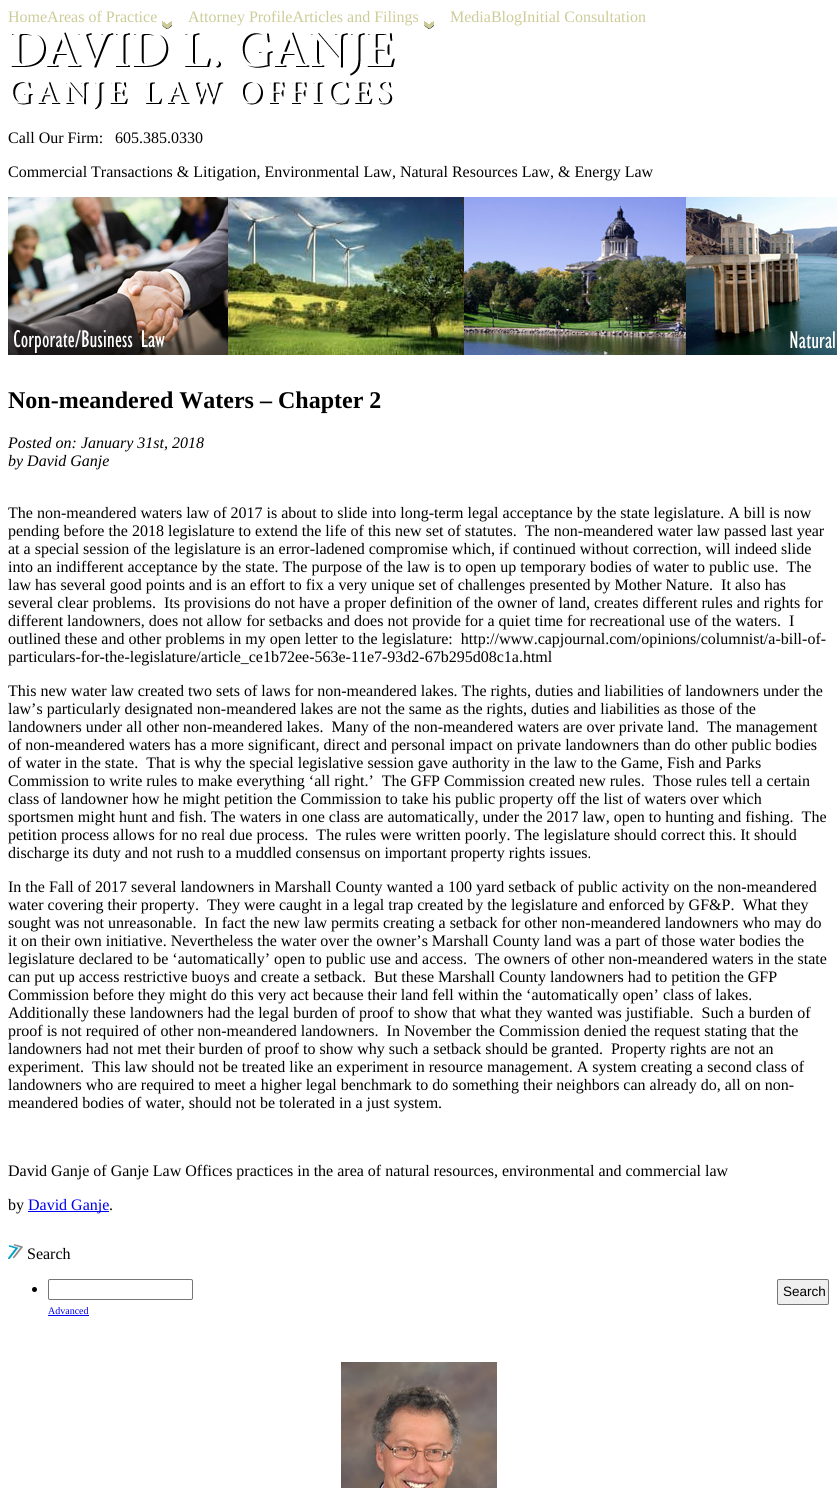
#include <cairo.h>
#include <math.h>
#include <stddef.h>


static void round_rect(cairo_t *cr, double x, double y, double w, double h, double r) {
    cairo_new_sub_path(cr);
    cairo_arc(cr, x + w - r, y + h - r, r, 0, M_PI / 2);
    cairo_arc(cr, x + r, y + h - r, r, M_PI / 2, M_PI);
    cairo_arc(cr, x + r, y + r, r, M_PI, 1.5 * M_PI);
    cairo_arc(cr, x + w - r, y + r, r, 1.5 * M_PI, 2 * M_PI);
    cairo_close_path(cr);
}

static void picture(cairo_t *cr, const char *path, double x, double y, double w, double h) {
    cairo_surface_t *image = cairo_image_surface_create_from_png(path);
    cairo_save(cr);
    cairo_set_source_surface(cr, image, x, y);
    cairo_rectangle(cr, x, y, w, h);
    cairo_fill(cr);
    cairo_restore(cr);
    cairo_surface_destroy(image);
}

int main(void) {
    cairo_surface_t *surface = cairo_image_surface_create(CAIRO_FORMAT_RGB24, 837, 1488);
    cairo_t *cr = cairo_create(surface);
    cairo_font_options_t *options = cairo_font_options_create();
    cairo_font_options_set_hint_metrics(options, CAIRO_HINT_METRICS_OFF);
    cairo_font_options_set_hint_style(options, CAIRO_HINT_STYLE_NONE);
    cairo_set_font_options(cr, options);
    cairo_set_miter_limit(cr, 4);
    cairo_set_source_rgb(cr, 1, 1, 1);
    cairo_paint(cr);
    cairo_select_font_face(cr, "Liberation Serif", CAIRO_FONT_SLANT_NORMAL, CAIRO_FONT_WEIGHT_NORMAL);
    cairo_set_font_size(cr, 16);
    cairo_set_source_rgb(cr, 0.8, 0.8, 0.6);
    cairo_move_to(cr, 8, 22);
    cairo_show_text(cr, "HomeAreas of Practice");
    picture(cr, "img1.png", 162, 21, 10, 8);
    cairo_move_to(cr, 188, 22);
    cairo_show_text(cr, "Attorney ProfileArticles and Filings");
    picture(cr, "img1.png", 424, 21, 10, 8);
    cairo_move_to(cr, 450, 22);
    cairo_show_text(cr, "MediaBlogInitial Consultation");
    picture(cr, "img2.png", 11, 32, 384, 78);
    cairo_set_source_rgb(cr, 0, 0, 0);
    cairo_move_to(cr, 8, 143);
    cairo_show_text(cr, "Call Our Firm:");
    cairo_move_to(cr, 115, 143);
    cairo_show_text(cr, "605.385.0330");
    cairo_move_to(cr, 8, 177);
    cairo_show_text(cr, "Commercial Transactions & Litigation, Environmental Law, Natural Resources Law, & Energy Law");
    picture(cr, "img3.png", 8, 197, 829, 158);
    cairo_select_font_face(cr, "Liberation Serif", CAIRO_FONT_SLANT_NORMAL, CAIRO_FONT_WEIGHT_BOLD);
    cairo_set_font_size(cr, 24);
    cairo_move_to(cr, 8, 408);
    cairo_show_text(cr, "Non-meandered Waters – Chapter 2");
    cairo_select_font_face(cr, "Liberation Serif", CAIRO_FONT_SLANT_ITALIC, CAIRO_FONT_WEIGHT_NORMAL);
    cairo_set_font_size(cr, 16);
    cairo_move_to(cr, 8, 448);
    cairo_show_text(cr, "Posted on: January 31st, 2018");
    cairo_move_to(cr, 8, 466);
    cairo_show_text(cr, "by David Ganje");
    cairo_select_font_face(cr, "Liberation Serif", CAIRO_FONT_SLANT_NORMAL, CAIRO_FONT_WEIGHT_NORMAL);
    cairo_move_to(cr, 8, 518);
    cairo_show_text(cr, "The non-meandered waters law of 2017 is about to slide into long-term legal acceptance by the state legislature. A bill is now");
    cairo_move_to(cr, 8, 536);
    cairo_show_text(cr, "pending before the 2018 legislature to extend the life of this new set of statutes.  The non-meandered water law passed last year");
    cairo_move_to(cr, 8, 554);
    cairo_show_text(cr, "at a special session of the legislature is an error-ladened compromise which, if continued without correction, will indeed slide");
    cairo_move_to(cr, 8, 572);
    cairo_show_text(cr, "into an indifferent acceptance by the state. The purpose of the law is to open up temporary bodies of water to public use.  The");
    cairo_move_to(cr, 8, 590);
    cairo_show_text(cr, "law has several good points and is an effort to fix a very unique set of challenges presented by Mother Nature.  It also has");
    cairo_move_to(cr, 8, 608);
    cairo_show_text(cr, "several clear problems.  Its provisions do not have a proper definition of the owner of land, creates different rules and rights for");
    cairo_move_to(cr, 8, 626);
    cairo_show_text(cr, "different landowners, does not allow for setbacks and does not provide for a quiet time for recreational use of the waters.  I");
    cairo_move_to(cr, 8, 644);
    cairo_show_text(cr, "outlined these and other problems in my open letter to the legislature:  http://www.capjournal.com/opinions/columnist/a-bill-of-");
    cairo_move_to(cr, 8, 662);
    cairo_show_text(cr, "particulars-for-the-legislature/article_ce1b72ee-563e-11e7-93d2-67b295d08c1a.html");
    cairo_move_to(cr, 8, 696);
    cairo_show_text(cr, "This new water law created two sets of laws for non-meandered lakes. The rights, duties and liabilities of landowners under the");
    cairo_move_to(cr, 8, 714);
    cairo_show_text(cr, "law’s particularly designated non-meandered lakes are not the same as the rights, duties and liabilities as those of the");
    cairo_move_to(cr, 8, 732);
    cairo_show_text(cr, "landowners under all other non-meandered lakes.  Many of the non-meandered waters are over private land.  The management");
    cairo_move_to(cr, 8, 750);
    cairo_show_text(cr, "of non-meandered waters has a more significant, direct and personal impact on private landowners than do other public bodies");
    cairo_move_to(cr, 8, 768);
    cairo_show_text(cr, "of water in the state.  That is why the special legislative session gave authority in the law to the Game, Fish and Parks");
    cairo_move_to(cr, 8, 786);
    cairo_show_text(cr, "Commission to write rules to make everything ‘all right.’  The GFP Commission created new rules.  Those rules tell a certain");
    cairo_move_to(cr, 8, 804);
    cairo_show_text(cr, "class of landowner how he might petition the Commission to take his public property off the list of waters over which");
    cairo_move_to(cr, 8, 822);
    cairo_show_text(cr, "sportsmen might hunt and fish. The waters in one class are automatically, under the 2017 law, open to hunting and fishing.  The");
    cairo_move_to(cr, 8, 840);
    cairo_show_text(cr, "petition process allows for no real due process.  The rules were written poorly. The legislature should correct this. It should");
    cairo_move_to(cr, 8, 858);
    cairo_show_text(cr, "discharge its duty and not rush to a muddled consensus on important property rights issues.");
    cairo_move_to(cr, 8, 892);
    cairo_show_text(cr, "In the Fall of 2017 several landowners in Marshall County wanted a 100 yard setback of public activity on the non-meandered");
    cairo_move_to(cr, 8, 910);
    cairo_show_text(cr, "water covering their property.  They were caught in a legal trap created by the legislature and enforced by GF&P.  What they");
    cairo_move_to(cr, 8, 928);
    cairo_show_text(cr, "sought was not unreasonable.  In fact the new law permits creating a setback for other non-meandered landowners who may do");
    cairo_move_to(cr, 8, 946);
    cairo_show_text(cr, "it on their own initiative. Nevertheless the water over the owner’s Marshall County land was a part of those water bodies the");
    cairo_move_to(cr, 8, 964);
    cairo_show_text(cr, "legislature declared to be ‘automatically’ open to public use and access.  The owners of other non-meandered waters in the state");
    cairo_move_to(cr, 8, 982);
    cairo_show_text(cr, "can put up access restrictive buoys and create a setback.  But these Marshall County landowners had to petition the GFP");
    cairo_move_to(cr, 8, 1000);
    cairo_show_text(cr, "Commission before they might do this very act because their land fell within the ‘automatically open’ class of lakes.");
    cairo_move_to(cr, 8, 1018);
    cairo_show_text(cr, "Additionally these landowners had the legal burden of proof to show that what they wanted was justifiable.  Such a burden of");
    cairo_move_to(cr, 8, 1036);
    cairo_show_text(cr, "proof is not required of other non-meandered landowners.  In November the Commission denied the request stating that the");
    cairo_move_to(cr, 8, 1054);
    cairo_show_text(cr, "landowners had not met their burden of proof to show why such a setback should be granted.  Property rights are not an");
    cairo_move_to(cr, 8, 1072);
    cairo_show_text(cr, "experiment.  This law should not be treated like an experiment in resource management. A system creating a second class of");
    cairo_move_to(cr, 8, 1090);
    cairo_show_text(cr, "landowners who are required to meet a higher legal benchmark to do something their neighbors can already do, all on non-");
    cairo_move_to(cr, 8, 1108);
    cairo_show_text(cr, "meandered bodies of water, should not be tolerated in a just system.");
    cairo_move_to(cr, 8, 1176);
    cairo_show_text(cr, "David Ganje of Ganje Law Offices practices in the area of natural resources, environmental and commercial law");
    cairo_move_to(cr, 8, 1210);
    cairo_show_text(cr, "by");
    cairo_set_source_rgb(cr, 0, 0, 0.933);
    cairo_rectangle(cr, 28, 1211, 81, 1);
    cairo_fill(cr);
    cairo_move_to(cr, 28, 1210);
    cairo_show_text(cr, "David Ganje");
    cairo_set_source_rgb(cr, 0, 0, 0);
    cairo_move_to(cr, 109, 1210);
    cairo_show_text(cr, ".");
    picture(cr, "img4.png", 8, 1244, 15, 15);
    cairo_move_to(cr, 27, 1259);
    cairo_show_text(cr, "Search");
    cairo_new_path(cr);
    cairo_arc(cr, 34.5, 1289.5, 2.5, 0, 2 * M_PI);
    cairo_fill(cr);
    round_rect(cr, 48.5, 1279.5, 144, 20, 1.5);
    cairo_set_source_rgb(cr, 0.463, 0.463, 0.463);
    cairo_set_line_width(cr, 1);
    cairo_stroke(cr);
    cairo_set_source_rgb(cr, 0.937, 0.937, 0.937);
    round_rect(cr, 777.5, 1279.5, 51, 25, 1.5);
    cairo_fill_preserve(cr);
    cairo_set_source_rgb(cr, 0.463, 0.463, 0.463);
    cairo_stroke(cr);
    cairo_select_font_face(cr, "Liberation Sans", CAIRO_FONT_SLANT_NORMAL, CAIRO_FONT_WEIGHT_NORMAL);
    cairo_set_font_size(cr, 13.5);
    cairo_set_source_rgb(cr, 0, 0, 0);
    cairo_move_to(cr, 783, 1296);
    cairo_show_text(cr, "Search");
    cairo_select_font_face(cr, "Liberation Serif", CAIRO_FONT_SLANT_NORMAL, CAIRO_FONT_WEIGHT_NORMAL);
    cairo_set_font_size(cr, 10);
    cairo_set_source_rgb(cr, 0, 0, 0.933);
    cairo_move_to(cr, 48, 1314);
    cairo_show_text(cr, "Advanced");
    cairo_rectangle(cr, 48, 1315, 41, 1);
    cairo_fill(cr);
    picture(cr, "img5.png", 341, 1362, 156, 126);
    cairo_surface_write_to_png(surface, "page.png");
    cairo_font_options_destroy(options);
    cairo_destroy(cr);
    cairo_surface_destroy(surface);
    return 0;
}
